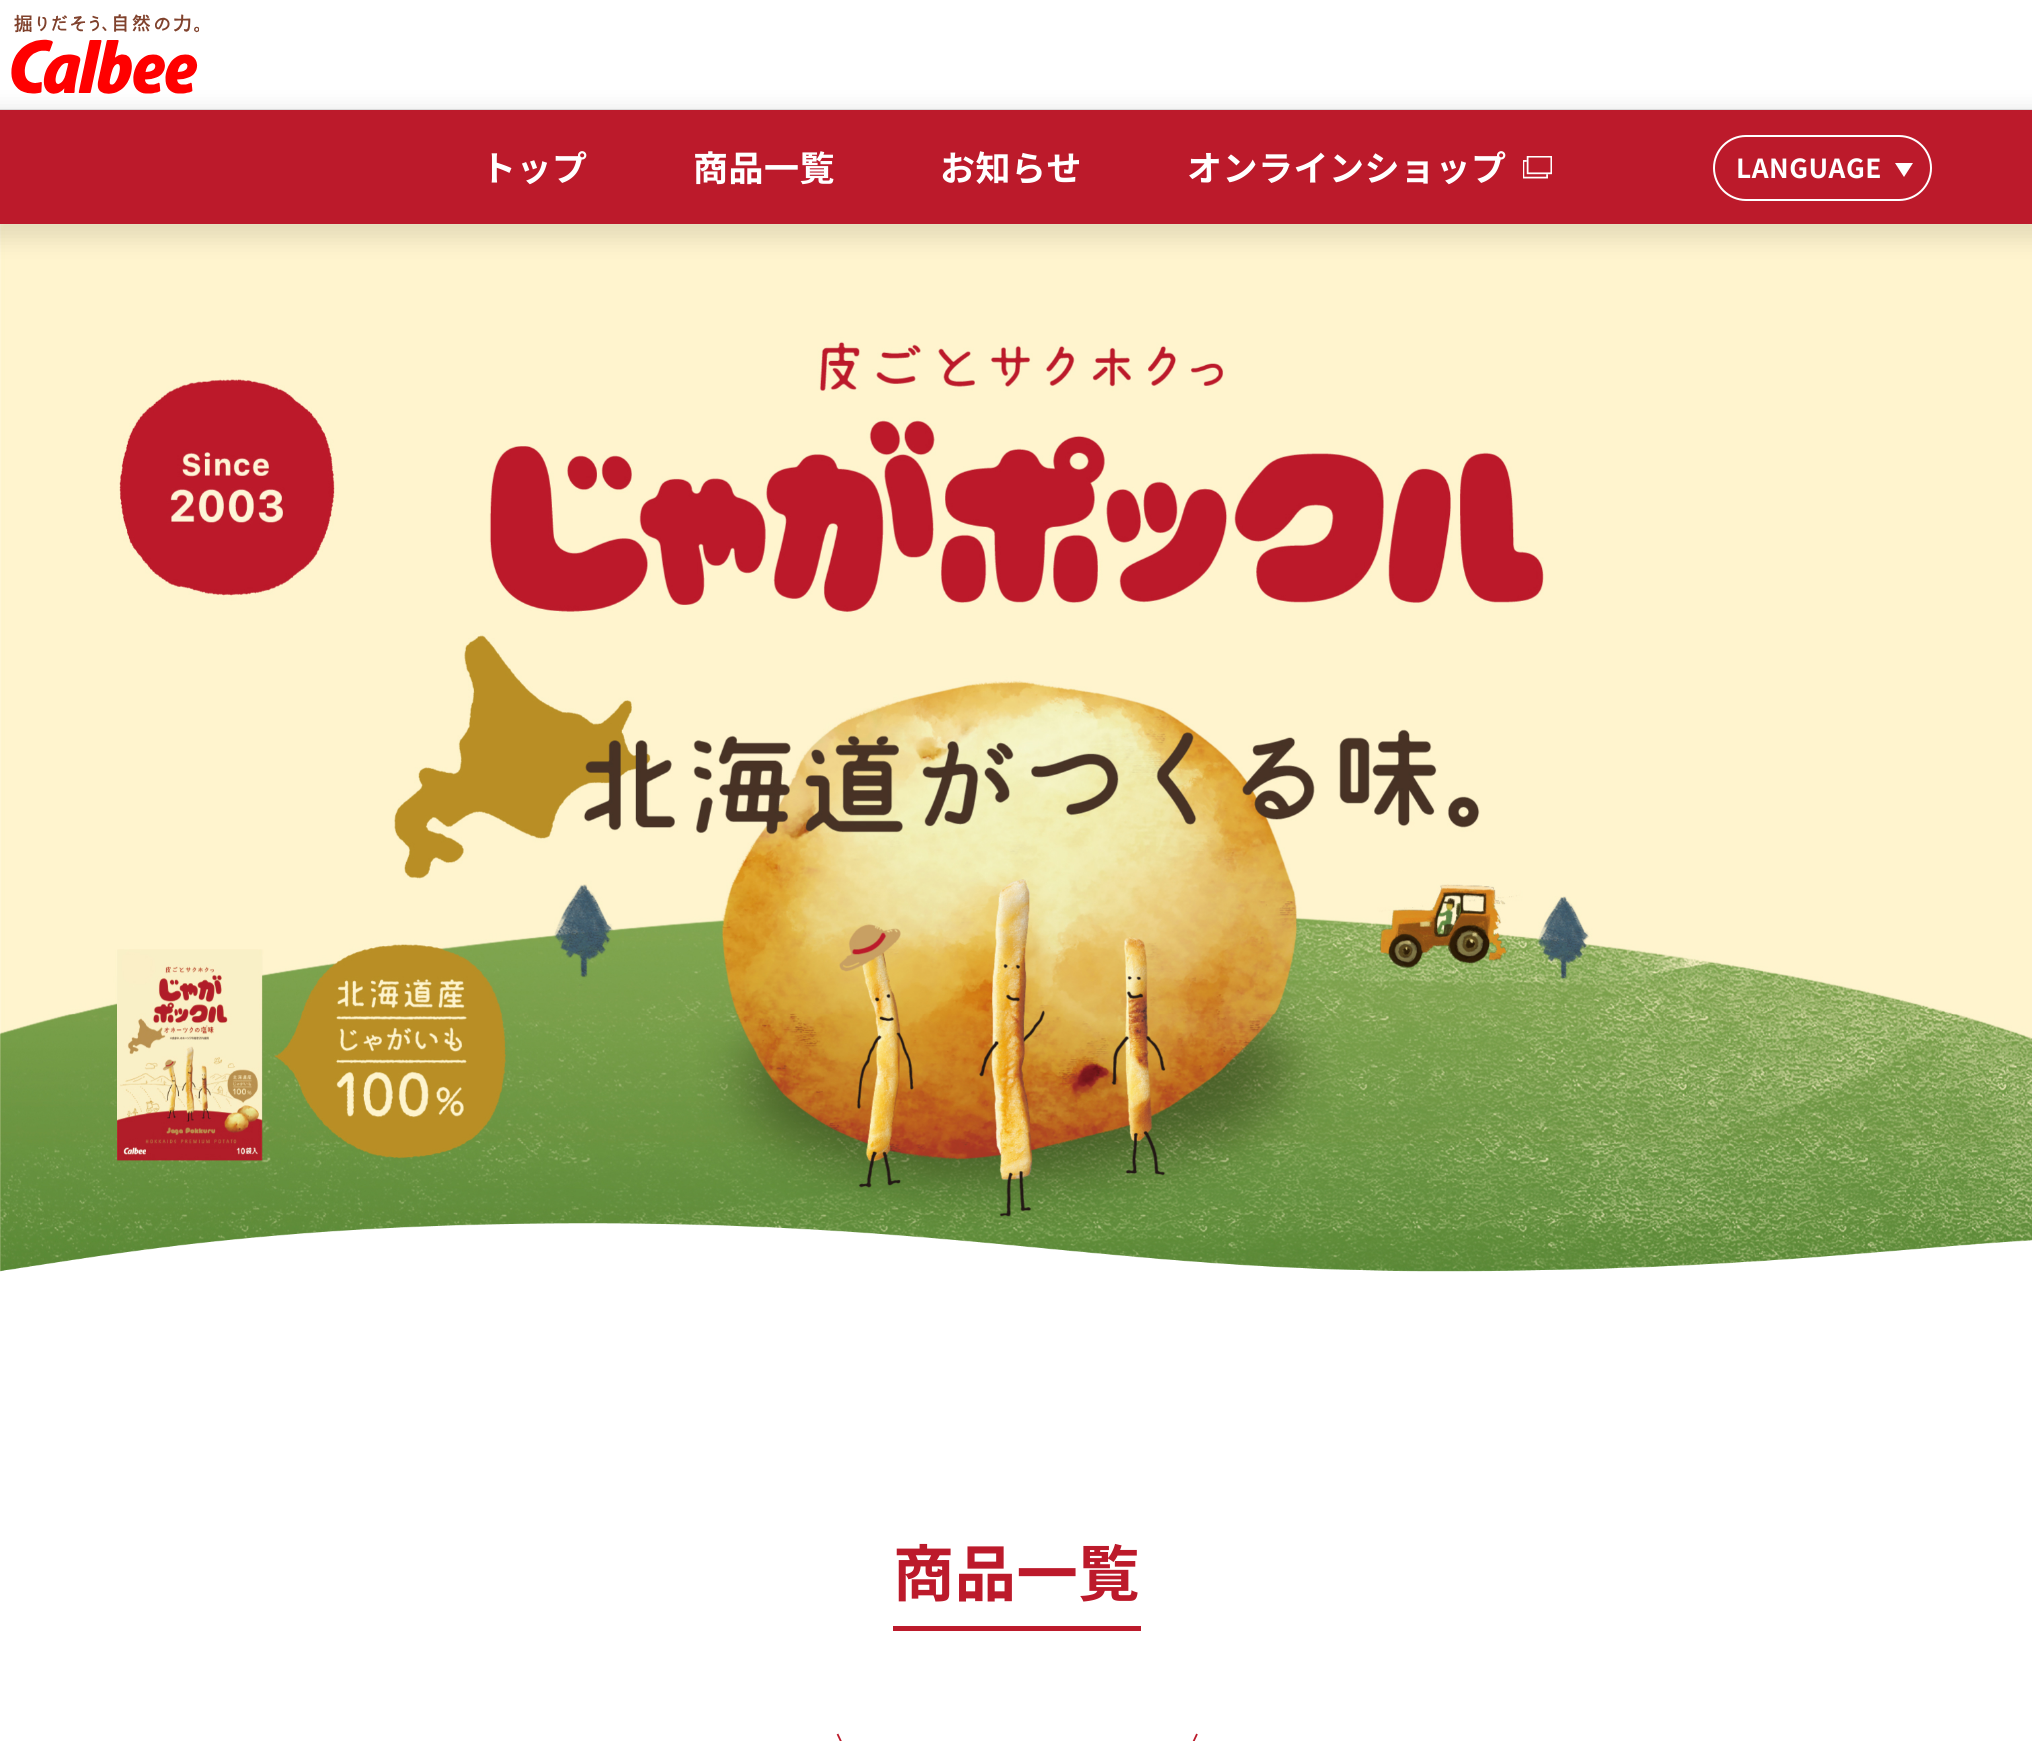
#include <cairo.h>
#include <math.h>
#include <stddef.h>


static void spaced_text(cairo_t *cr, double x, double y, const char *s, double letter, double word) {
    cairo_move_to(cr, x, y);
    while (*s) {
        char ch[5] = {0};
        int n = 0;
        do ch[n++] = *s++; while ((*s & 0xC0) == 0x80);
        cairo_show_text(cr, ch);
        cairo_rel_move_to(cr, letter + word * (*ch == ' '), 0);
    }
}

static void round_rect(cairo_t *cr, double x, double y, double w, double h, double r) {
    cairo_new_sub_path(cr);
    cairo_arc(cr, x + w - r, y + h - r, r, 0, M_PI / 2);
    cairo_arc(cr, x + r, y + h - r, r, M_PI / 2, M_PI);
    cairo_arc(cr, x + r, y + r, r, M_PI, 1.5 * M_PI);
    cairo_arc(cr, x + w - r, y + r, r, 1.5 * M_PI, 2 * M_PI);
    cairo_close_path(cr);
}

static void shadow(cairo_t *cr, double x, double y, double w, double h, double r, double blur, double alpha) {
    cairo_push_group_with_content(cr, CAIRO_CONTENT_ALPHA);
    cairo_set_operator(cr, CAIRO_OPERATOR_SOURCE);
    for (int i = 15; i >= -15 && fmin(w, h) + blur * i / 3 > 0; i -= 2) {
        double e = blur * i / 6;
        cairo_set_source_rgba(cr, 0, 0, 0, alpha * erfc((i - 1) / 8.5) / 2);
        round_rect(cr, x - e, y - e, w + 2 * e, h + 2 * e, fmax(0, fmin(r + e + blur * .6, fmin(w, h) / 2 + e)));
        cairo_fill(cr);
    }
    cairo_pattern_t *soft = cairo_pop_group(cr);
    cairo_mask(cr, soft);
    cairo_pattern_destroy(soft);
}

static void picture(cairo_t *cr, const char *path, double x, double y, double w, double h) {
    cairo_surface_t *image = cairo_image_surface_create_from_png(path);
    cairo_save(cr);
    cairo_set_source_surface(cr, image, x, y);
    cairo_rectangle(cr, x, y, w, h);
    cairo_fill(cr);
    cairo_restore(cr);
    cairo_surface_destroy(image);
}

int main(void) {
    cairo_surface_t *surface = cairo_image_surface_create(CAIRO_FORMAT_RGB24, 2032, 1741);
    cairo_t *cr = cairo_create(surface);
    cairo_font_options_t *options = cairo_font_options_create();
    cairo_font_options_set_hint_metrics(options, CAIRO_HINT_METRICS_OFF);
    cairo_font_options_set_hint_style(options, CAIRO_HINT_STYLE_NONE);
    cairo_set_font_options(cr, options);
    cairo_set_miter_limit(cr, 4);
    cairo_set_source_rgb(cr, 1, 1, 1);
    cairo_paint(cr);
    picture(cr, "img1.png", 11, 14, 188, 80);
    cairo_set_source_rgb(cr, 0.898, 0.898, 0.898);
    cairo_rectangle(cr, 0, 109, 2032, 1);
    cairo_fill(cr);
    picture(cr, "img3.png", 0, 224, 2032, 1048);
    cairo_set_source_rgb(cr, 0, 0, 0);
    shadow(cr, -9, 109, 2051, 131, 0, 10.5, 0.1);
    cairo_set_source_rgb(cr, 0.737, 0.102, 0.169);
    cairo_rectangle(cr, 0, 110, 2032, 114);
    cairo_fill(cr);
    cairo_select_font_face(cr, "Noto Sans JP", CAIRO_FONT_SLANT_NORMAL, CAIRO_FONT_WEIGHT_BOLD);
    cairo_set_font_size(cr, 35);
    cairo_set_source_rgb(cr, 1, 1, 1);
    spaced_text(cr, 481, 181, "トップ", 0.5, 0);
    spaced_text(cr, 693, 181, "商品一覧", 0.5, 0);
    spaced_text(cr, 940, 181, "お知らせ", 0.5, 0);
    spaced_text(cr, 1187, 181, "オンラインショップ", 0.5, 0);
    picture(cr, "img2.png", 1523, 156, 29, 23);
    round_rect(cr, 1714, 136, 217, 64, 32);
    cairo_stroke(cr);
    cairo_set_font_size(cr, 26.25);
    spaced_text(cr, 1736, 178, "LANGUAGE", 0.5, 0);
    cairo_new_path(cr);
    cairo_move_to(cr, 1895, 163);
    cairo_line_to(cr, 1913, 163);
    cairo_line_to(cr, 1904, 177);
    cairo_close_path(cr);
    cairo_fill(cr);
    picture(cr, "img4.png", 0, 1223, 2032, 57);
    cairo_set_source_rgb(cr, 0.737, 0.102, 0.169);
    cairo_rectangle(cr, 893, 1626, 248, 5);
    cairo_fill(cr);
    cairo_set_font_size(cr, 61.25);
    spaced_text(cr, 893, 1596, "商品一覧", 0.5, 0);
    cairo_new_path(cr);
    cairo_move_to(cr, 837.5, 1734);
    cairo_line_to(cr, 855.5, 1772.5);
    cairo_set_line_width(cr, 1.8);
    cairo_stroke(cr);
    cairo_new_path(cr);
    cairo_move_to(cr, 1197, 1734);
    cairo_line_to(cr, 1179, 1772.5);
    cairo_stroke(cr);
    cairo_surface_write_to_png(surface, "page.png");
    cairo_font_options_destroy(options);
    cairo_destroy(cr);
    cairo_surface_destroy(surface);
    return 0;
}
